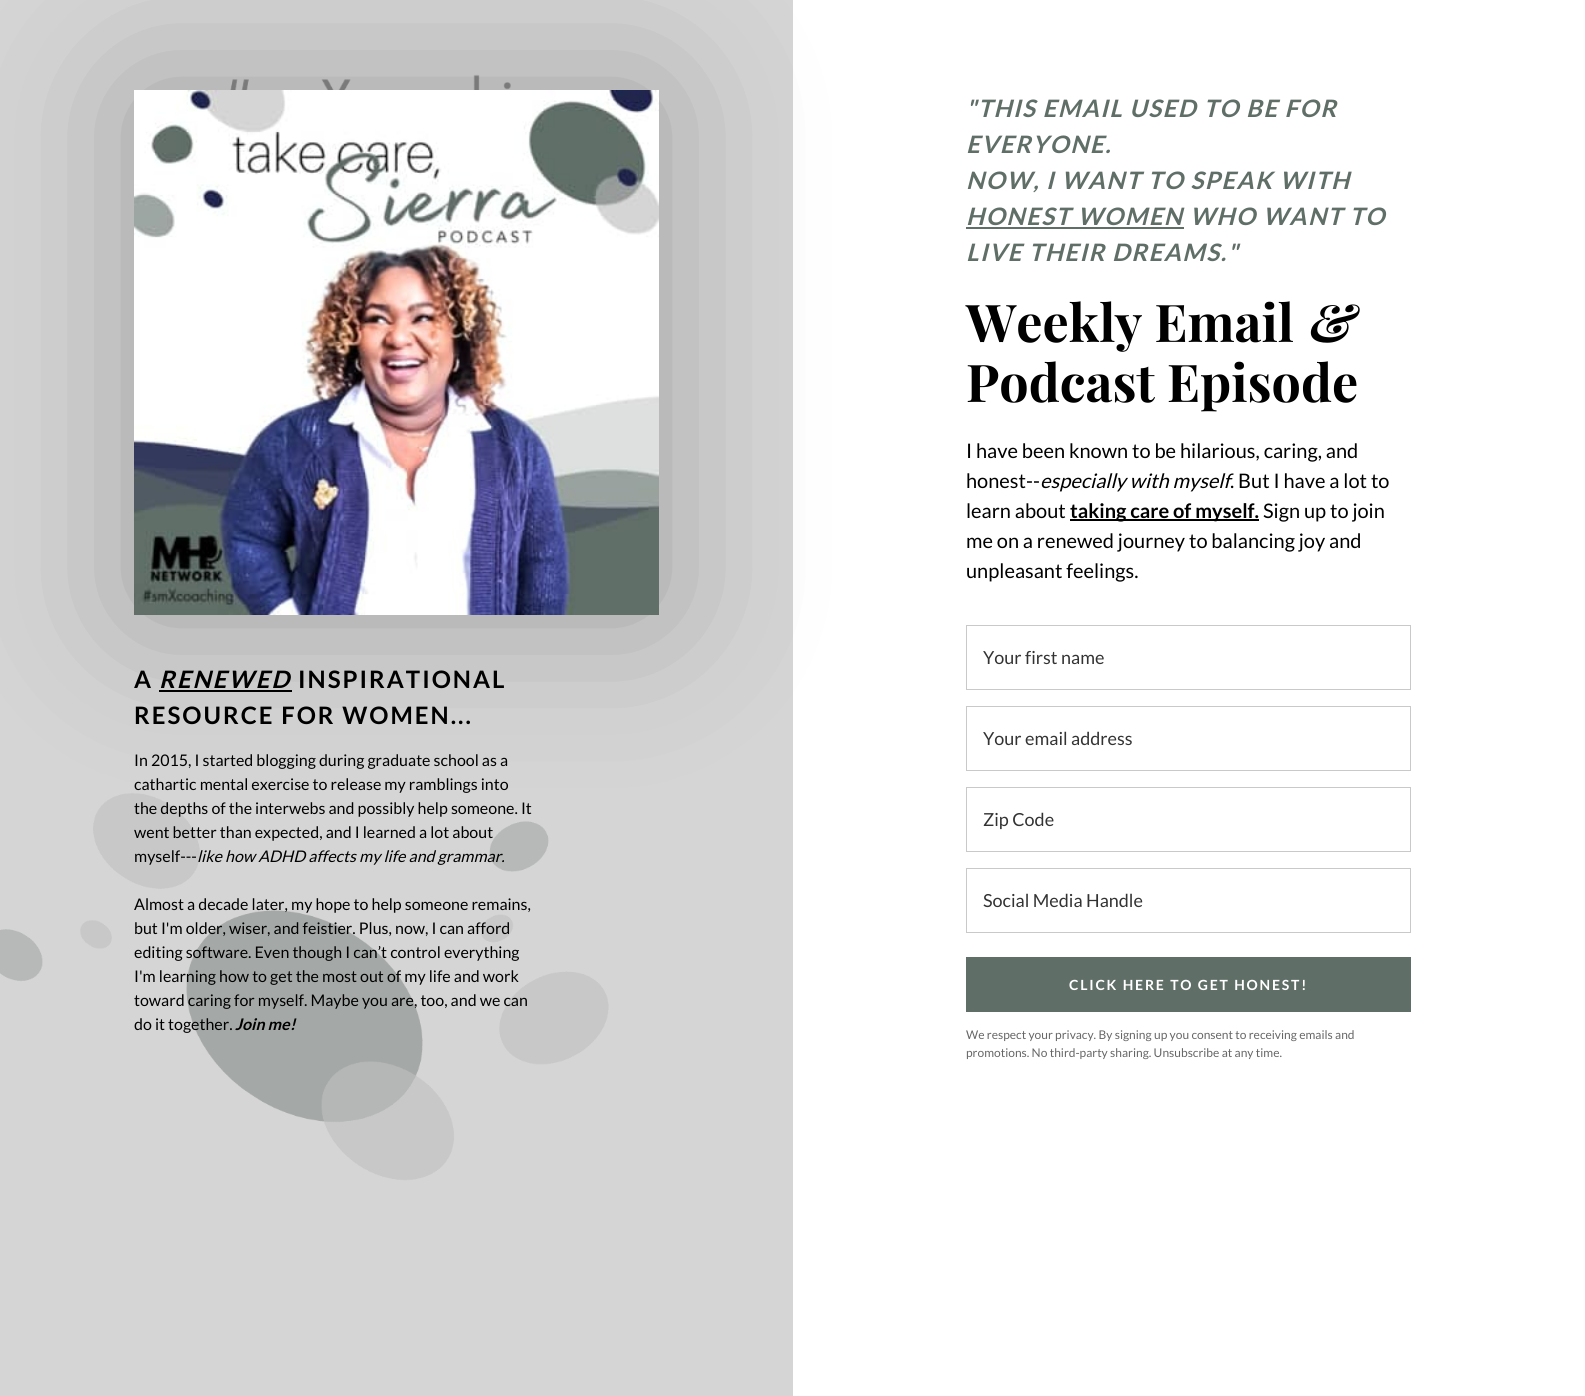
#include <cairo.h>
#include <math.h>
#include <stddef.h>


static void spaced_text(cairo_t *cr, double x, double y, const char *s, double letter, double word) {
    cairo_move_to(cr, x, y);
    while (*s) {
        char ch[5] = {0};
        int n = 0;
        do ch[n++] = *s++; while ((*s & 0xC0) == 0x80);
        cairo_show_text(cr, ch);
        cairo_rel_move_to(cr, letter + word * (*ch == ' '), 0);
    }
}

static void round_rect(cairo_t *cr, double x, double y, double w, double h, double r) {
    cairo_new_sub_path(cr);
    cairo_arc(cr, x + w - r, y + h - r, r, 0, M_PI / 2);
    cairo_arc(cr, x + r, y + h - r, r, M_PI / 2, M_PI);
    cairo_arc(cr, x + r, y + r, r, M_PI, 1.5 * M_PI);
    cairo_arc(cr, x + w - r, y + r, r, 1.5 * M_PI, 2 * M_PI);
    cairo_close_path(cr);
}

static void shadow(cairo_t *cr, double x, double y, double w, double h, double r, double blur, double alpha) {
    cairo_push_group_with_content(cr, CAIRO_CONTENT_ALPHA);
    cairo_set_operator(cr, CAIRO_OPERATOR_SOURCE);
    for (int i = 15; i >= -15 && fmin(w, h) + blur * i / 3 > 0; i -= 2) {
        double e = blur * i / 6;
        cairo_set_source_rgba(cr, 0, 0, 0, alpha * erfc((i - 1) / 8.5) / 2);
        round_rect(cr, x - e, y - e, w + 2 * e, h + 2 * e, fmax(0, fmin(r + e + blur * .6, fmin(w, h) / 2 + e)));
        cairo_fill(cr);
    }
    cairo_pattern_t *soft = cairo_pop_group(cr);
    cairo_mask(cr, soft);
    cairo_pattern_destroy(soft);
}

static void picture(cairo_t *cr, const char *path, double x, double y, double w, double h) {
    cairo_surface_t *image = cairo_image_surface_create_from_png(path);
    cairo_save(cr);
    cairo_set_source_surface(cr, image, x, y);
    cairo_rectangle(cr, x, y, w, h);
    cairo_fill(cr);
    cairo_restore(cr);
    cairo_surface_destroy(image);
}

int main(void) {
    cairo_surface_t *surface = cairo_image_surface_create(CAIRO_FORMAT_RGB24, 1585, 1396);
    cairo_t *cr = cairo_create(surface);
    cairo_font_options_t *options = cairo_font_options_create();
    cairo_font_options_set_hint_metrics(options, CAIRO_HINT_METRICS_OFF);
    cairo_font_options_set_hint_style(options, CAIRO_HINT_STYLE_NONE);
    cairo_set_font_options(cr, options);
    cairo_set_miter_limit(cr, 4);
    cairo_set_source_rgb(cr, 1, 1, 1);
    cairo_paint(cr);
    cairo_set_source_rgb(cr, 0.761, 0.761, 0.761);
    cairo_rectangle(cr, 0, 0, 793, 1396);
    cairo_fill(cr);
    picture(cr, "img1.png", 0, 0, 793, 1396);
    cairo_set_source_rgb(cr, 0, 0, 0);
    cairo_rectangle(cr, 159, 690, 133, 2);
    cairo_fill(cr);
    cairo_set_source_rgb(cr, 0, 0, 0);
    shadow(cr, 134, 90, 525, 525, 0, 80, 0.25);
    picture(cr, "img2.png", 134, 90, 525, 525);
    cairo_select_font_face(cr, "Lato", CAIRO_FONT_SLANT_NORMAL, CAIRO_FONT_WEIGHT_BOLD);
    cairo_set_font_size(cr, 24);
    cairo_set_source_rgb(cr, 0, 0, 0);
    spaced_text(cr, 134, 688, "A", 2, 0);
    cairo_select_font_face(cr, "Lato", CAIRO_FONT_SLANT_ITALIC, CAIRO_FONT_WEIGHT_BOLD);
    spaced_text(cr, 159, 688, "RENEWED", 2, 0);
    cairo_select_font_face(cr, "Lato", CAIRO_FONT_SLANT_NORMAL, CAIRO_FONT_WEIGHT_BOLD);
    spaced_text(cr, 298, 688, "INSPIRATIONAL", 2, 0);
    spaced_text(cr, 134, 724, "RESOURCE FOR WOMEN...", 2, 0);
    cairo_select_font_face(cr, "Lato", CAIRO_FONT_SLANT_NORMAL, CAIRO_FONT_WEIGHT_NORMAL);
    cairo_set_font_size(cr, 16);
    cairo_move_to(cr, 134, 766);
    cairo_show_text(cr, "In 2015, I started blogging during graduate school as a");
    cairo_move_to(cr, 134, 790);
    cairo_show_text(cr, "cathartic mental exercise to release my ramblings into");
    cairo_move_to(cr, 134, 814);
    cairo_show_text(cr, "the depths of the interwebs and possibly help someone. It");
    cairo_move_to(cr, 134, 838);
    cairo_show_text(cr, "went better than expected, and I learned a lot about");
    cairo_move_to(cr, 134, 862);
    cairo_show_text(cr, "myself---");
    cairo_select_font_face(cr, "Lato", CAIRO_FONT_SLANT_ITALIC, CAIRO_FONT_WEIGHT_NORMAL);
    cairo_move_to(cr, 197, 862);
    cairo_show_text(cr, "like how ADHD affects my life and grammar.");
    cairo_select_font_face(cr, "Lato", CAIRO_FONT_SLANT_NORMAL, CAIRO_FONT_WEIGHT_NORMAL);
    cairo_move_to(cr, 134, 910);
    cairo_show_text(cr, "Almost a decade later, my hope to help someone remains,");
    cairo_move_to(cr, 134, 934);
    cairo_show_text(cr, "but I'm older, wiser, and feistier. Plus, now, I can afford");
    cairo_move_to(cr, 134, 958);
    cairo_show_text(cr, "editing software. Even though I can’t control everything");
    cairo_move_to(cr, 134, 982);
    cairo_show_text(cr, "I'm learning how to get the most out of my life and work");
    cairo_move_to(cr, 134, 1006);
    cairo_show_text(cr, "toward caring for myself. Maybe you are, too, and we can");
    cairo_move_to(cr, 134, 1030);
    cairo_show_text(cr, "do it together.");
    cairo_select_font_face(cr, "Lato", CAIRO_FONT_SLANT_ITALIC, CAIRO_FONT_WEIGHT_BOLD);
    cairo_move_to(cr, 235, 1030);
    cairo_show_text(cr, "Join me!");
    cairo_set_font_size(cr, 24);
    cairo_set_source_rgb(cr, 0.376, 0.431, 0.408);
    spaced_text(cr, 966, 117, "\"THIS EMAIL USED TO BE FOR", 1.5, 0);
    spaced_text(cr, 966, 153, "EVERYONE.", 1.5, 0);
    spaced_text(cr, 966, 189, "NOW, I WANT TO SPEAK WITH", 1.5, 0);
    spaced_text(cr, 966, 225, "HONEST WOMEN WHO WANT TO", 1.5, 0);
    cairo_rectangle(cr, 966, 227, 218, 2);
    cairo_fill(cr);
    spaced_text(cr, 966, 261, "LIVE THEIR DREAMS.\"", 1.5, 0);
    cairo_select_font_face(cr, "Playfair Display", CAIRO_FONT_SLANT_NORMAL, CAIRO_FONT_WEIGHT_BOLD);
    cairo_set_font_size(cr, 52);
    cairo_set_source_rgb(cr, 0, 0, 0);
    cairo_move_to(cr, 966, 342);
    cairo_show_text(cr, "Weekly Email");
    cairo_select_font_face(cr, "Playfair Display", CAIRO_FONT_SLANT_ITALIC, CAIRO_FONT_WEIGHT_BOLD);
    cairo_move_to(cr, 1306, 342);
    cairo_show_text(cr, "&");
    cairo_select_font_face(cr, "Playfair Display", CAIRO_FONT_SLANT_NORMAL, CAIRO_FONT_WEIGHT_BOLD);
    cairo_move_to(cr, 966, 402);
    cairo_show_text(cr, "Podcast Episode");
    cairo_select_font_face(cr, "Lato", CAIRO_FONT_SLANT_NORMAL, CAIRO_FONT_WEIGHT_NORMAL);
    cairo_set_font_size(cr, 20);
    cairo_move_to(cr, 966, 458);
    cairo_show_text(cr, "I have been known to be hilarious, caring, and");
    cairo_move_to(cr, 966, 488);
    cairo_show_text(cr, "honest--");
    cairo_select_font_face(cr, "Lato", CAIRO_FONT_SLANT_ITALIC, CAIRO_FONT_WEIGHT_NORMAL);
    cairo_move_to(cr, 1040, 488);
    cairo_show_text(cr, "especially with myself");
    cairo_select_font_face(cr, "Lato", CAIRO_FONT_SLANT_NORMAL, CAIRO_FONT_WEIGHT_NORMAL);
    cairo_move_to(cr, 1230, 488);
    cairo_show_text(cr, ". But I have a lot to");
    cairo_move_to(cr, 966, 518);
    cairo_show_text(cr, "learn about");
    cairo_rectangle(cr, 1070, 519, 189, 2);
    cairo_fill(cr);
    cairo_select_font_face(cr, "Lato", CAIRO_FONT_SLANT_NORMAL, CAIRO_FONT_WEIGHT_BOLD);
    cairo_move_to(cr, 1070, 518);
    cairo_show_text(cr, "taking care of myself.");
    cairo_select_font_face(cr, "Lato", CAIRO_FONT_SLANT_NORMAL, CAIRO_FONT_WEIGHT_NORMAL);
    cairo_move_to(cr, 1263, 518);
    cairo_show_text(cr, "Sign up to join");
    cairo_move_to(cr, 966, 548);
    cairo_show_text(cr, "me on a renewed journey to balancing joy and");
    cairo_move_to(cr, 966, 578);
    cairo_show_text(cr, "unpleasant feelings.");
    cairo_rectangle(cr, 966.5, 625.5, 444, 64);
    cairo_set_source_rgb(cr, 0.788, 0.788, 0.788);
    cairo_set_line_width(cr, 1);
    cairo_stroke(cr);
    cairo_set_font_size(cr, 18);
    cairo_set_source_rgb(cr, 0.2, 0.2, 0.2);
    cairo_move_to(cr, 983, 664);
    cairo_show_text(cr, "Your first name");
    cairo_rectangle(cr, 966.5, 706.5, 444, 64);
    cairo_set_source_rgb(cr, 0.788, 0.788, 0.788);
    cairo_stroke(cr);
    cairo_set_source_rgb(cr, 0.2, 0.2, 0.2);
    cairo_move_to(cr, 983, 745);
    cairo_show_text(cr, "Your email address");
    cairo_rectangle(cr, 966.5, 787.5, 444, 64);
    cairo_set_source_rgb(cr, 0.788, 0.788, 0.788);
    cairo_stroke(cr);
    cairo_set_source_rgb(cr, 0.2, 0.2, 0.2);
    cairo_move_to(cr, 983, 826);
    cairo_show_text(cr, "Zip Code");
    cairo_rectangle(cr, 966.5, 868.5, 444, 64);
    cairo_set_source_rgb(cr, 0.788, 0.788, 0.788);
    cairo_stroke(cr);
    cairo_set_source_rgb(cr, 0.2, 0.2, 0.2);
    cairo_move_to(cr, 983, 907);
    cairo_show_text(cr, "Social Media Handle");
    cairo_set_source_rgb(cr, 0.376, 0.431, 0.408);
    cairo_rectangle(cr, 966, 957, 445, 55);
    cairo_fill(cr);
    cairo_select_font_face(cr, "Lato", CAIRO_FONT_SLANT_NORMAL, CAIRO_FONT_WEIGHT_BOLD);
    cairo_set_font_size(cr, 14);
    cairo_set_source_rgb(cr, 1, 1, 1);
    spaced_text(cr, 1069, 990, "CLICK HERE TO GET HONEST!", 1.8, 0);
    cairo_select_font_face(cr, "Lato", CAIRO_FONT_SLANT_NORMAL, CAIRO_FONT_WEIGHT_NORMAL);
    cairo_set_font_size(cr, 12);
    cairo_set_source_rgb(cr, 0.4, 0.4, 0.4);
    cairo_move_to(cr, 966, 1039);
    cairo_show_text(cr, "We respect your privacy. By signing up you consent to receiving emails and");
    cairo_move_to(cr, 966, 1057);
    cairo_show_text(cr, "promotions. No third-party sharing. Unsubscribe at any time.");
    cairo_surface_write_to_png(surface, "page.png");
    cairo_font_options_destroy(options);
    cairo_destroy(cr);
    cairo_surface_destroy(surface);
    return 0;
}
